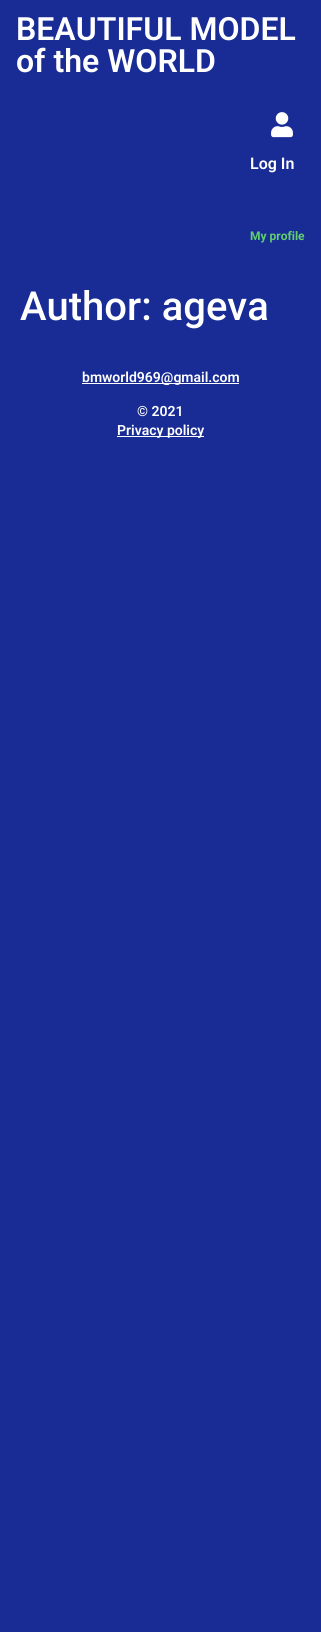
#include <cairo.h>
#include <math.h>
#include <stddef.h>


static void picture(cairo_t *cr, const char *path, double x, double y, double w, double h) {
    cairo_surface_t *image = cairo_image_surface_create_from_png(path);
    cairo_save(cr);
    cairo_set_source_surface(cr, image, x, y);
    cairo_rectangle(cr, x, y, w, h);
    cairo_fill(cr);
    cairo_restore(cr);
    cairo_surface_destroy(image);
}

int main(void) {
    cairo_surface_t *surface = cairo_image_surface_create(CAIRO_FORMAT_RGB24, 321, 1632);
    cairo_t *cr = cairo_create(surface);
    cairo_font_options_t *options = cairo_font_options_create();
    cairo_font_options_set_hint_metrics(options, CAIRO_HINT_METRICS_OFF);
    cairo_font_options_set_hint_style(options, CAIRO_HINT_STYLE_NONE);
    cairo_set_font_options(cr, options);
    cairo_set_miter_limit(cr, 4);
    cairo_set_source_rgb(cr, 0.098, 0.173, 0.584);
    cairo_paint(cr);
    cairo_select_font_face(cr, "Roboto SemiBold", CAIRO_FONT_SLANT_NORMAL, CAIRO_FONT_WEIGHT_NORMAL);
    cairo_set_font_size(cr, 32);
    cairo_set_source_rgb(cr, 1, 1, 1);
    cairo_move_to(cr, 16, 40);
    cairo_show_text(cr, "BEAUTIFUL MODEL");
    cairo_move_to(cr, 16, 72);
    cairo_show_text(cr, "of the WORLD");
    picture(cr, "img1.png", 271, 112, 22, 26);
    cairo_set_font_size(cr, 16);
    cairo_move_to(cr, 250, 169);
    cairo_show_text(cr, "Log In");
    cairo_select_font_face(cr, "Roboto", CAIRO_FONT_SLANT_NORMAL, CAIRO_FONT_WEIGHT_BOLD);
    cairo_set_font_size(cr, 12);
    cairo_set_source_rgb(cr, 0.38, 0.808, 0.439);
    cairo_move_to(cr, 250, 240);
    cairo_show_text(cr, "My profile");
    cairo_select_font_face(cr, "Roboto Medium", CAIRO_FONT_SLANT_NORMAL, CAIRO_FONT_WEIGHT_NORMAL);
    cairo_set_font_size(cr, 40);
    cairo_set_source_rgb(cr, 1, 1, 1);
    cairo_move_to(cr, 20, 320);
    cairo_show_text(cr, "Author: ageva");
    cairo_rectangle(cr, 82, 383, 157, 1);
    cairo_fill(cr);
    cairo_select_font_face(cr, "Roboto SemiBold", CAIRO_FONT_SLANT_NORMAL, CAIRO_FONT_WEIGHT_NORMAL);
    cairo_set_font_size(cr, 14);
    cairo_move_to(cr, 82, 382);
    cairo_show_text(cr, "bmworld969@gmail.com");
    cairo_move_to(cr, 137, 416);
    cairo_show_text(cr, "© 2021");
    cairo_rectangle(cr, 117, 436, 87, 1);
    cairo_fill(cr);
    cairo_move_to(cr, 117, 435);
    cairo_show_text(cr, "Privacy policy");
    cairo_surface_write_to_png(surface, "page.png");
    cairo_font_options_destroy(options);
    cairo_destroy(cr);
    cairo_surface_destroy(surface);
    return 0;
}
